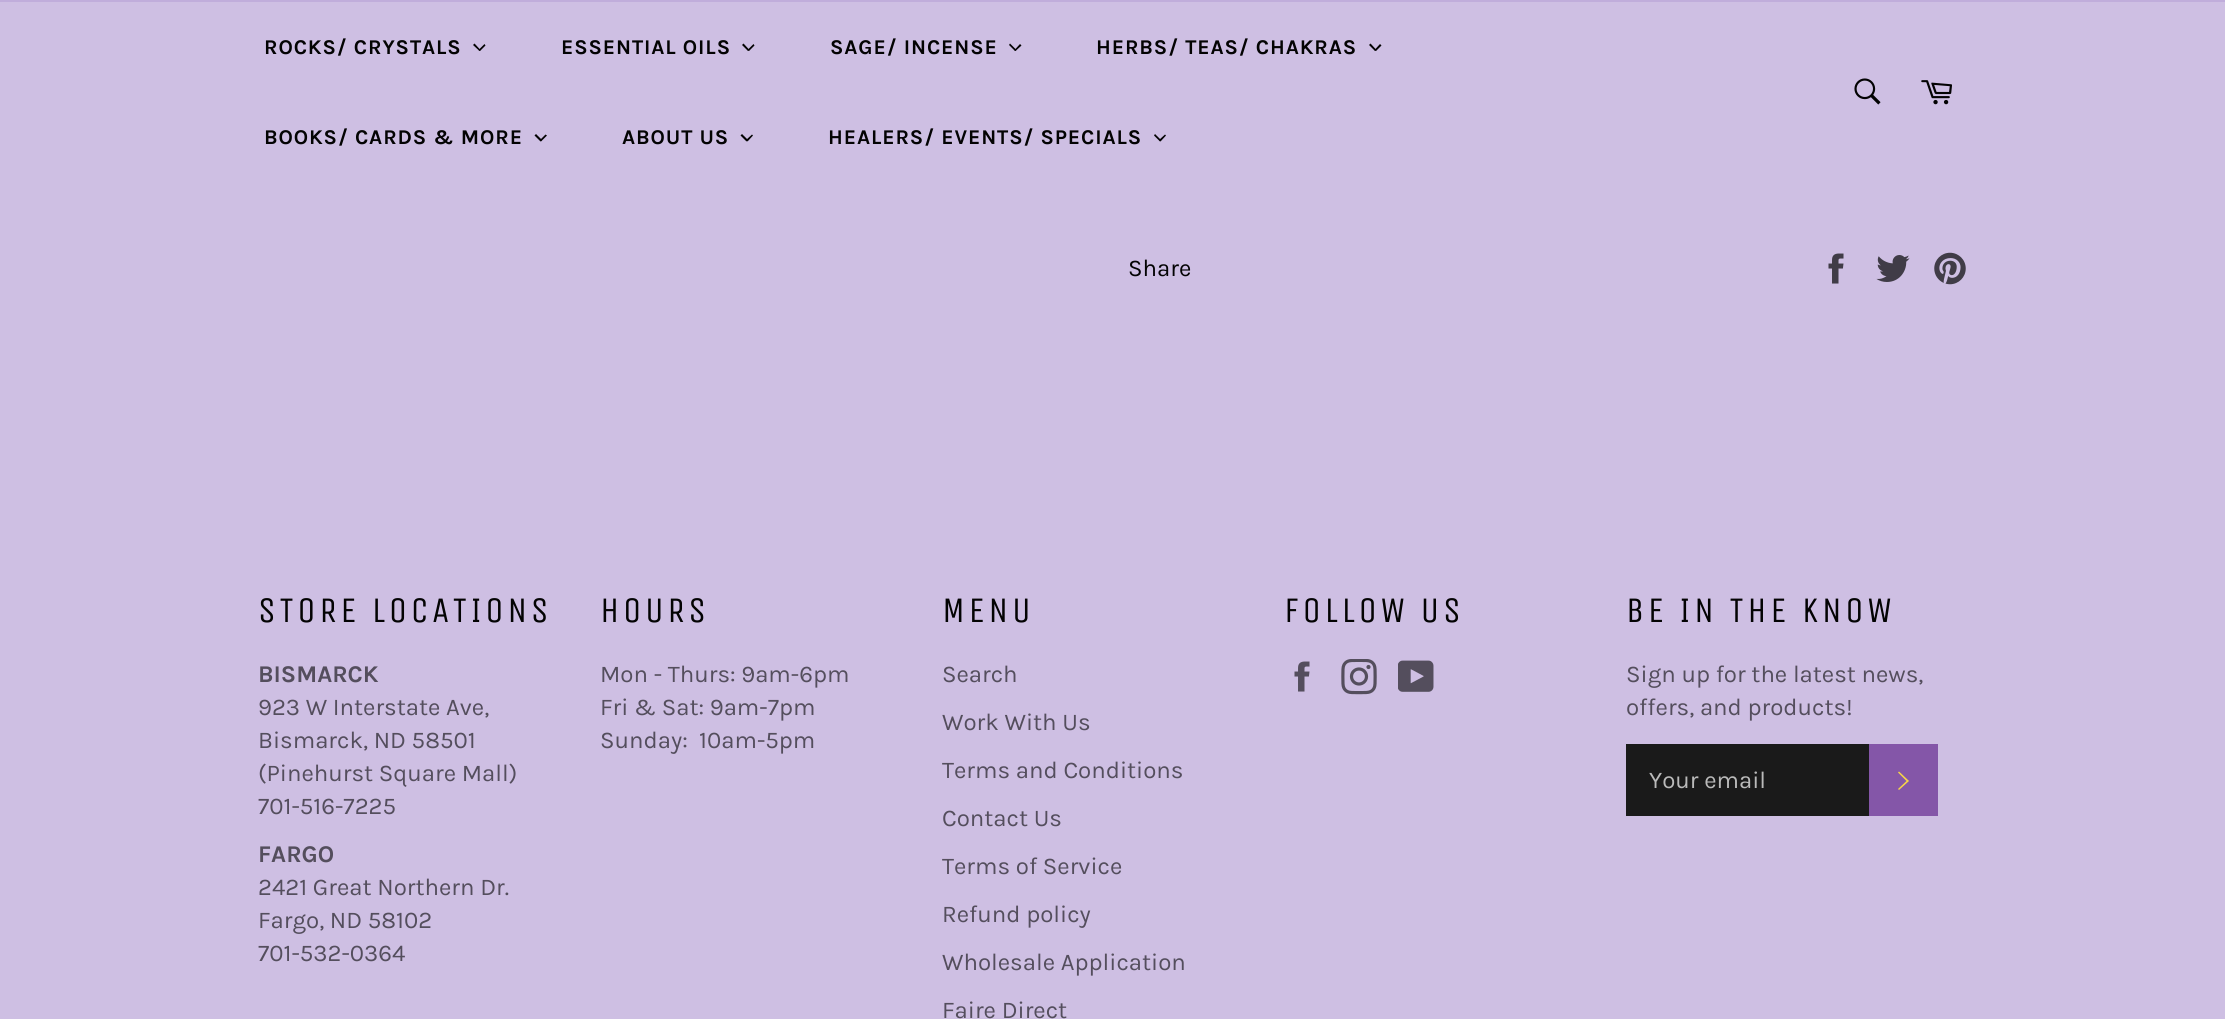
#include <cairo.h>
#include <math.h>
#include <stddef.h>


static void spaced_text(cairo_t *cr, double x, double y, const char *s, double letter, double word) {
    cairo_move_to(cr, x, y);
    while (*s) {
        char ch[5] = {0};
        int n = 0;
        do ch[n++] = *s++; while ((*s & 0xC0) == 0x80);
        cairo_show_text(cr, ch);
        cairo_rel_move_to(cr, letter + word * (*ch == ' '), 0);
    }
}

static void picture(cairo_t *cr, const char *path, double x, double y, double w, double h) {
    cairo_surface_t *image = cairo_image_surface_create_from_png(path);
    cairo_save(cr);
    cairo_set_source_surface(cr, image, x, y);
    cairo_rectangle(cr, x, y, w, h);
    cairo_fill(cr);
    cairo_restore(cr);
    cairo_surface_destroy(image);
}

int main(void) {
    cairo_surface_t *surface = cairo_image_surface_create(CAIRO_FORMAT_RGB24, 2225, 1019);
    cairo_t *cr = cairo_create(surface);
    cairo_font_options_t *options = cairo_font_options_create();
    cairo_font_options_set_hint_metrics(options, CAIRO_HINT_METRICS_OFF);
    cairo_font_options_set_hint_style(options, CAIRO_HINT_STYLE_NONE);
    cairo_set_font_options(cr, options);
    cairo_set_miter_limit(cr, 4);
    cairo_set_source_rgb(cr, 0.808, 0.749, 0.89);
    cairo_paint(cr);
    cairo_set_source_rgb(cr, 0.753, 0.678, 0.859);
    cairo_rectangle(cr, 0, 0, 2225, 2);
    cairo_fill(cr);
    cairo_select_font_face(cr, "Karla", CAIRO_FONT_SLANT_NORMAL, CAIRO_FONT_WEIGHT_BOLD);
    cairo_set_font_size(cr, 21);
    cairo_set_source_rgb(cr, 0.012, 0.012, 0.012);
    spaced_text(cr, 264, 54, "ROCKS/ CRYSTALS", 0.9, 0);
    cairo_new_path(cr);
    cairo_move_to(cr, 484.5, 44);
    cairo_line_to(cr, 485.5, 45.5);
    cairo_line_to(cr, 480, 51);
    cairo_line_to(cr, 478.5, 50);
    cairo_close_path(cr);
    cairo_fill(cr);
    cairo_new_path(cr);
    cairo_move_to(cr, 474.5, 43.5);
    cairo_line_to(cr, 480.5, 50);
    cairo_line_to(cr, 479.5, 51);
    cairo_line_to(cr, 473, 45);
    cairo_close_path(cr);
    cairo_fill(cr);
    spaced_text(cr, 561, 54, "ESSENTIAL OILS", 0.9, 0);
    cairo_new_path(cr);
    cairo_move_to(cr, 753.5, 44);
    cairo_line_to(cr, 754.5, 45.5);
    cairo_line_to(cr, 749, 51);
    cairo_line_to(cr, 747.5, 50);
    cairo_close_path(cr);
    cairo_fill(cr);
    cairo_new_path(cr);
    cairo_move_to(cr, 743.5, 43.5);
    cairo_line_to(cr, 749.5, 50);
    cairo_line_to(cr, 748, 51);
    cairo_line_to(cr, 742, 45);
    cairo_close_path(cr);
    cairo_fill(cr);
    spaced_text(cr, 830, 54, "SAGE/ INCENSE", 0.9, 0);
    cairo_new_path(cr);
    cairo_move_to(cr, 1020, 44);
    cairo_line_to(cr, 1021.5, 45.5);
    cairo_line_to(cr, 1015.5, 51);
    cairo_line_to(cr, 1014.5, 50);
    cairo_close_path(cr);
    cairo_fill(cr);
    cairo_new_path(cr);
    cairo_move_to(cr, 1010, 43.5);
    cairo_line_to(cr, 1016.5, 50);
    cairo_line_to(cr, 1015, 51);
    cairo_line_to(cr, 1009, 45);
    cairo_close_path(cr);
    cairo_fill(cr);
    spaced_text(cr, 1096, 54, "HERBS/ TEAS/ CHAKRAS", 0.9, 0);
    cairo_new_path(cr);
    cairo_move_to(cr, 1380, 44);
    cairo_line_to(cr, 1381.5, 45.5);
    cairo_line_to(cr, 1376, 51);
    cairo_line_to(cr, 1374.5, 50);
    cairo_close_path(cr);
    cairo_fill(cr);
    cairo_new_path(cr);
    cairo_move_to(cr, 1370.5, 43.5);
    cairo_line_to(cr, 1376.5, 50);
    cairo_line_to(cr, 1375, 51);
    cairo_line_to(cr, 1369, 45);
    cairo_close_path(cr);
    cairo_fill(cr);
    spaced_text(cr, 264, 144, "BOOKS/ CARDS & MORE", 0.9, 0);
    cairo_new_path(cr);
    cairo_move_to(cr, 545.5, 134.5);
    cairo_line_to(cr, 547, 135.5);
    cairo_line_to(cr, 541, 141.5);
    cairo_line_to(cr, 540, 140);
    cairo_close_path(cr);
    cairo_fill(cr);
    cairo_new_path(cr);
    cairo_move_to(cr, 536, 134);
    cairo_line_to(cr, 542, 140);
    cairo_line_to(cr, 540.5, 141.5);
    cairo_line_to(cr, 534.5, 135.5);
    cairo_close_path(cr);
    cairo_fill(cr);
    spaced_text(cr, 622, 144, "ABOUT US", 0.9, 0);
    cairo_new_path(cr);
    cairo_move_to(cr, 752, 134.5);
    cairo_line_to(cr, 753, 135.5);
    cairo_line_to(cr, 747.5, 141.5);
    cairo_line_to(cr, 746, 140);
    cairo_close_path(cr);
    cairo_fill(cr);
    cairo_new_path(cr);
    cairo_move_to(cr, 742, 134);
    cairo_line_to(cr, 748, 140);
    cairo_line_to(cr, 746.5, 141.5);
    cairo_line_to(cr, 740.5, 135.5);
    cairo_close_path(cr);
    cairo_fill(cr);
    spaced_text(cr, 828, 144, "HEALERS/ EVENTS/ SPECIALS", 0.9, 0);
    cairo_new_path(cr);
    cairo_move_to(cr, 1165, 134.5);
    cairo_line_to(cr, 1166, 135.5);
    cairo_line_to(cr, 1160.5, 141.5);
    cairo_line_to(cr, 1159, 140);
    cairo_close_path(cr);
    cairo_fill(cr);
    cairo_new_path(cr);
    cairo_move_to(cr, 1155, 134);
    cairo_line_to(cr, 1161, 140);
    cairo_line_to(cr, 1160, 141.5);
    cairo_line_to(cr, 1154, 135.5);
    cairo_close_path(cr);
    cairo_fill(cr);
    picture(cr, "img1.png", 1854, 78, 27, 27);
    picture(cr, "img2.png", 1921, 80, 31, 25);
    cairo_select_font_face(cr, "Karla", CAIRO_FONT_SLANT_NORMAL, CAIRO_FONT_WEIGHT_NORMAL);
    cairo_set_font_size(cr, 24);
    cairo_move_to(cr, 1128, 276);
    cairo_show_text(cr, "Share");
    picture(cr, "img3.png", 1828, 253, 16, 31);
    picture(cr, "img4.png", 1876, 255, 34, 27);
    picture(cr, "img5.png", 1934, 252, 32, 33);
    cairo_select_font_face(cr, "Unica One", CAIRO_FONT_SLANT_NORMAL, CAIRO_FONT_WEIGHT_NORMAL);
    cairo_set_font_size(cr, 36);
    spaced_text(cr, 258, 622, "STORE LOCATIONS", 3.6, 0);
    cairo_select_font_face(cr, "Karla", CAIRO_FONT_SLANT_NORMAL, CAIRO_FONT_WEIGHT_BOLD);
    cairo_set_font_size(cr, 24);
    cairo_set_source_rgb(cr, 0.329, 0.306, 0.365);
    cairo_move_to(cr, 258, 682);
    cairo_show_text(cr, "BISMARCK");
    cairo_select_font_face(cr, "Karla", CAIRO_FONT_SLANT_NORMAL, CAIRO_FONT_WEIGHT_NORMAL);
    cairo_move_to(cr, 258, 715);
    cairo_show_text(cr, "923 W Interstate Ave,");
    cairo_move_to(cr, 258, 748);
    cairo_show_text(cr, "Bismarck, ND 58501");
    cairo_move_to(cr, 258, 781);
    cairo_show_text(cr, "(Pinehurst Square Mall)");
    cairo_move_to(cr, 258, 814);
    cairo_show_text(cr, "701-516-7225");
    cairo_select_font_face(cr, "Karla", CAIRO_FONT_SLANT_NORMAL, CAIRO_FONT_WEIGHT_BOLD);
    cairo_move_to(cr, 258, 862);
    cairo_show_text(cr, "FARGO");
    cairo_select_font_face(cr, "Karla", CAIRO_FONT_SLANT_NORMAL, CAIRO_FONT_WEIGHT_NORMAL);
    cairo_move_to(cr, 258, 895);
    cairo_show_text(cr, "2421 Great Northern Dr.");
    cairo_move_to(cr, 258, 928);
    cairo_show_text(cr, "Fargo, ND 58102");
    cairo_move_to(cr, 258, 961);
    cairo_show_text(cr, "701-532-0364");
    cairo_select_font_face(cr, "Unica One", CAIRO_FONT_SLANT_NORMAL, CAIRO_FONT_WEIGHT_NORMAL);
    cairo_set_font_size(cr, 36);
    cairo_set_source_rgb(cr, 0.012, 0.012, 0.012);
    spaced_text(cr, 600, 622, "HOURS", 3.6, 0);
    cairo_select_font_face(cr, "Karla", CAIRO_FONT_SLANT_NORMAL, CAIRO_FONT_WEIGHT_NORMAL);
    cairo_set_font_size(cr, 24);
    cairo_set_source_rgb(cr, 0.329, 0.306, 0.365);
    cairo_move_to(cr, 600, 682);
    cairo_show_text(cr, "Mon - Thurs: 9am-6pm");
    cairo_move_to(cr, 600, 715);
    cairo_show_text(cr, "Fri & Sat: 9am-7pm");
    cairo_move_to(cr, 600, 748);
    cairo_show_text(cr, "Sunday:  10am-5pm");
    cairo_select_font_face(cr, "Unica One", CAIRO_FONT_SLANT_NORMAL, CAIRO_FONT_WEIGHT_NORMAL);
    cairo_set_font_size(cr, 36);
    cairo_set_source_rgb(cr, 0.012, 0.012, 0.012);
    spaced_text(cr, 942, 622, "MENU", 3.6, 0);
    cairo_select_font_face(cr, "Karla", CAIRO_FONT_SLANT_NORMAL, CAIRO_FONT_WEIGHT_NORMAL);
    cairo_set_font_size(cr, 24);
    cairo_set_source_rgb(cr, 0.329, 0.306, 0.365);
    cairo_move_to(cr, 942, 682);
    cairo_show_text(cr, "Search");
    cairo_move_to(cr, 942, 730);
    cairo_show_text(cr, "Work With Us");
    cairo_move_to(cr, 942, 778);
    cairo_show_text(cr, "Terms and Conditions");
    cairo_move_to(cr, 942, 826);
    cairo_show_text(cr, "Contact Us");
    cairo_move_to(cr, 942, 874);
    cairo_show_text(cr, "Terms of Service");
    cairo_move_to(cr, 942, 922);
    cairo_show_text(cr, "Refund policy");
    cairo_move_to(cr, 942, 970);
    cairo_show_text(cr, "Wholesale Application");
    cairo_move_to(cr, 942, 1018);
    cairo_show_text(cr, "Faire Direct");
    cairo_select_font_face(cr, "Unica One", CAIRO_FONT_SLANT_NORMAL, CAIRO_FONT_WEIGHT_NORMAL);
    cairo_set_font_size(cr, 36);
    cairo_set_source_rgb(cr, 0.012, 0.012, 0.012);
    spaced_text(cr, 1284, 622, "FOLLOW US", 3.6, 0);
    picture(cr, "img6.png", 1294, 661, 16, 31);
    picture(cr, "img7.png", 1341, 659, 36, 36);
    picture(cr, "img8.png", 1398, 660, 36, 32);
    spaced_text(cr, 1626, 622, "BE IN THE KNOW", 3.6, 0);
    cairo_select_font_face(cr, "Karla", CAIRO_FONT_SLANT_NORMAL, CAIRO_FONT_WEIGHT_NORMAL);
    cairo_set_font_size(cr, 24);
    cairo_set_source_rgb(cr, 0.329, 0.306, 0.365);
    cairo_move_to(cr, 1626, 682);
    cairo_show_text(cr, "Sign up for the latest news,");
    cairo_move_to(cr, 1626, 715);
    cairo_show_text(cr, "offers, and products!");
    cairo_set_source_rgb(cr, 0.102, 0.102, 0.102);
    cairo_rectangle(cr, 1626, 744, 243, 72);
    cairo_fill(cr);
    cairo_set_source_rgb(cr, 0.729, 0.729, 0.729);
    cairo_move_to(cr, 1649, 788);
    cairo_show_text(cr, "Your email");
    cairo_set_source_rgb(cr, 0.518, 0.337, 0.659);
    cairo_rectangle(cr, 1869, 744, 69, 72);
    cairo_fill(cr);
    cairo_set_source_rgb(cr, 0.961, 0.835, 0.278);
    cairo_new_path(cr);
    cairo_move_to(cr, 1898, 772.5);
    cairo_line_to(cr, 1899, 771.5);
    cairo_line_to(cr, 1909, 781);
    cairo_line_to(cr, 1899, 790);
    cairo_line_to(cr, 1898, 789);
    cairo_line_to(cr, 1906.5, 781);
    cairo_close_path(cr);
    cairo_fill(cr);
    cairo_surface_write_to_png(surface, "page.png");
    cairo_font_options_destroy(options);
    cairo_destroy(cr);
    cairo_surface_destroy(surface);
    return 0;
}
